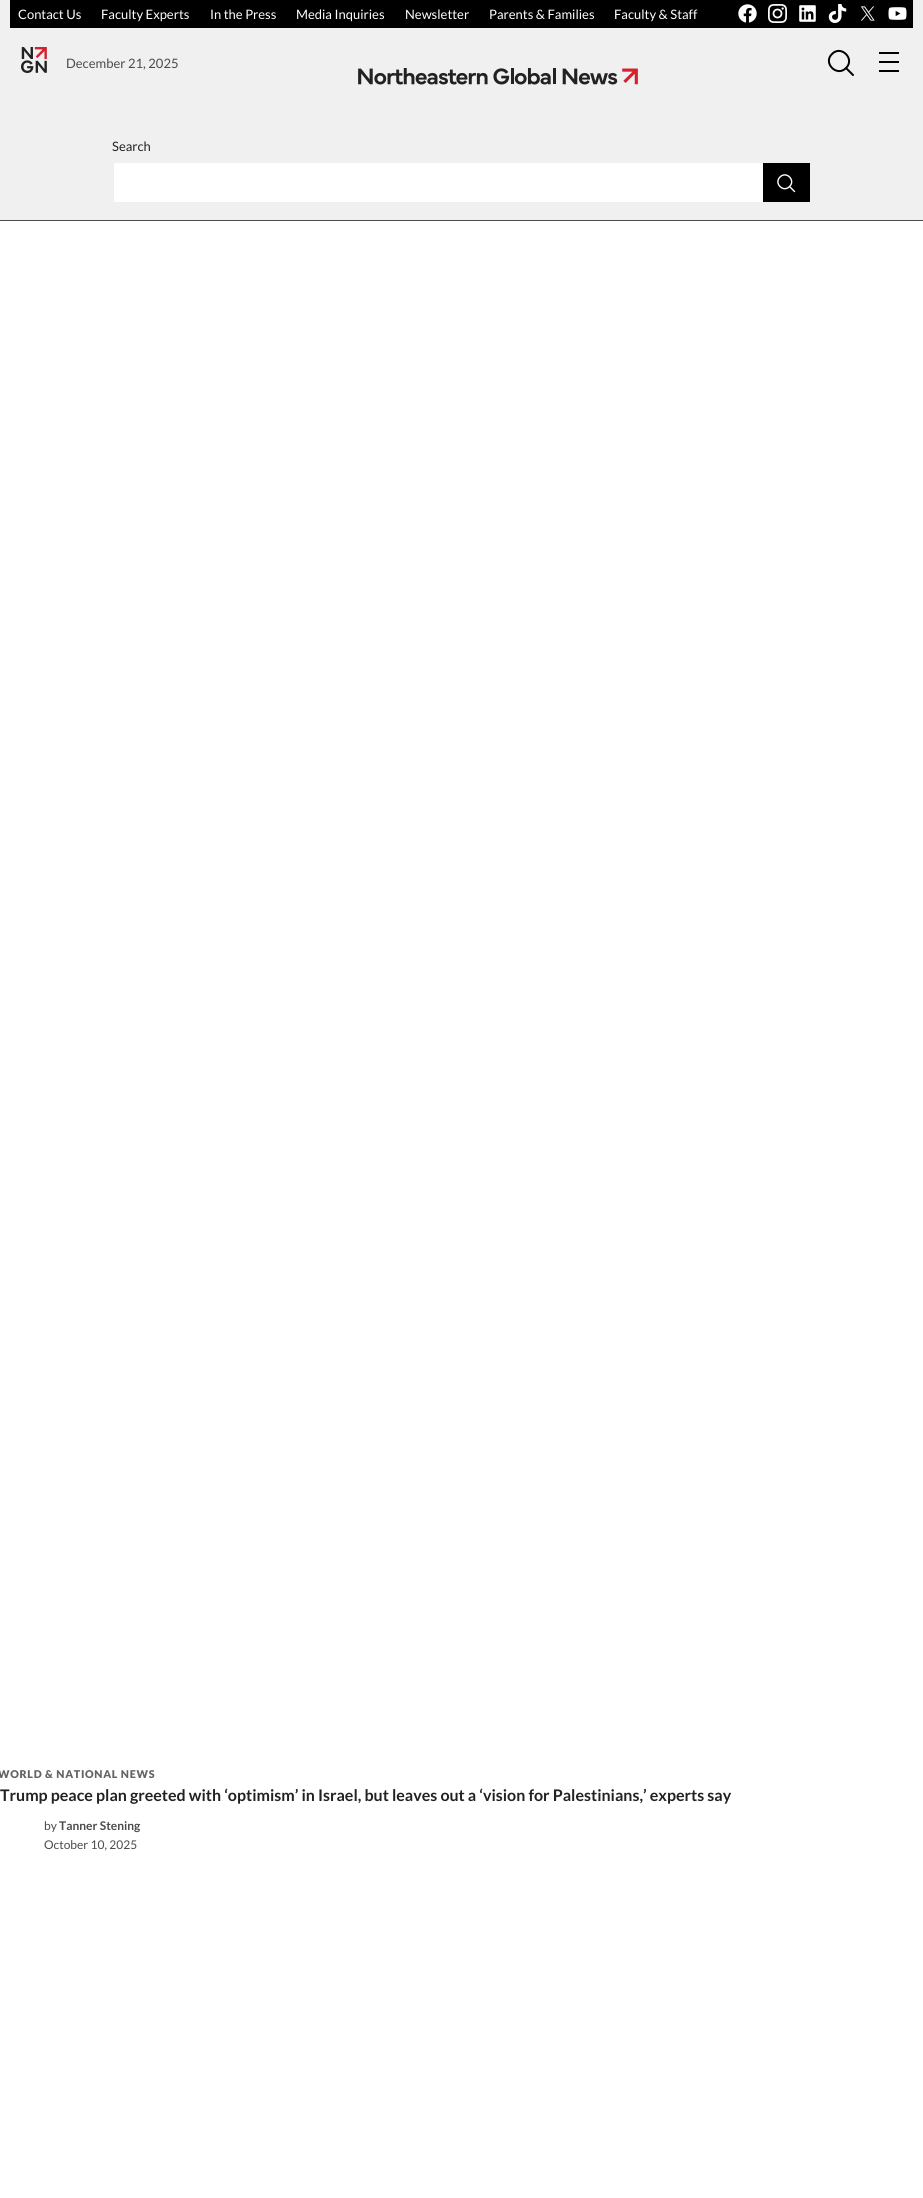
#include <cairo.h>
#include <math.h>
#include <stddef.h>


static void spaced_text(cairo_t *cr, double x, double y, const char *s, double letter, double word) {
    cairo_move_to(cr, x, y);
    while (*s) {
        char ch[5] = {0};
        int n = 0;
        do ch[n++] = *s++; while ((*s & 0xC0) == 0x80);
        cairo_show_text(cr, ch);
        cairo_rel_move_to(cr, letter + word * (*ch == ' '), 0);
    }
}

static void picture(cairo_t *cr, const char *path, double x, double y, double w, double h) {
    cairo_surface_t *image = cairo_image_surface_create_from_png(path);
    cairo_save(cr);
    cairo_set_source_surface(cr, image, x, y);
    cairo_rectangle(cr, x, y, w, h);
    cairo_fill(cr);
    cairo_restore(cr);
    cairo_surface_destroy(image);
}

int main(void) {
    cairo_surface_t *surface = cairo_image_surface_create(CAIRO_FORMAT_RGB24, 923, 2198);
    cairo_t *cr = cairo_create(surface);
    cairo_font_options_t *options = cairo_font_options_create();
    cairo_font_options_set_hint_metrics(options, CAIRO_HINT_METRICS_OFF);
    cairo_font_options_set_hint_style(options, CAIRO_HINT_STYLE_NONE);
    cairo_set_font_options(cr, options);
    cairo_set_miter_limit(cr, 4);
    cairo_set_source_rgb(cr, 1, 1, 1);
    cairo_paint(cr);
    cairo_set_source_rgb(cr, 0.941, 0.941, 0.941);
    cairo_rectangle(cr, 0, 0, 923, 220);
    cairo_fill(cr);
    cairo_set_source_rgb(cr, 0, 0, 0);
    cairo_rectangle(cr, 10, 0, 903, 28);
    cairo_fill(cr);
    cairo_select_font_face(cr, "Lato", CAIRO_FONT_SLANT_NORMAL, CAIRO_FONT_WEIGHT_NORMAL);
    cairo_set_font_size(cr, 13);
    cairo_set_source_rgb(cr, 1, 1, 1);
    cairo_move_to(cr, 18, 19);
    cairo_show_text(cr, "Contact Us");
    cairo_move_to(cr, 101, 19);
    cairo_show_text(cr, "Faculty Experts");
    cairo_move_to(cr, 210, 19);
    cairo_show_text(cr, "In the Press");
    cairo_move_to(cr, 296, 19);
    cairo_show_text(cr, "Media Inquiries");
    cairo_move_to(cr, 405, 19);
    cairo_show_text(cr, "Newsletter");
    cairo_move_to(cr, 489, 19);
    cairo_show_text(cr, "Parents & Families");
    cairo_move_to(cr, 614, 19);
    cairo_show_text(cr, "Faculty & Staff");
    picture(cr, "img1.png", 738, 4, 19, 19);
    picture(cr, "img2.png", 768, 4, 19, 19);
    picture(cr, "img3.png", 799, 5, 17, 17);
    picture(cr, "img4.png", 828, 4, 19, 19);
    picture(cr, "img5.png", 860, 6, 15, 15);
    picture(cr, "img6.png", 888, 7, 19, 13);
    picture(cr, "img7.png", 21, 47, 26, 26);
    cairo_set_source_rgb(cr, 0.294, 0.294, 0.294);
    cairo_move_to(cr, 66, 68);
    cairo_show_text(cr, "December 21, 2025");
    cairo_new_path(cr);
    cairo_move_to(cr, 853, 75);
    cairo_line_to(cr, 846, 68);
    cairo_move_to(cr, 846, 68);
    cairo_curve_to(cr, 855.5, 59, 841, 44.5, 832, 54);
    cairo_curve_to(cr, 822.5, 63, 837, 77.5, 846, 68);
    cairo_close_path(cr);
    cairo_set_source_rgb(cr, 0, 0, 0);
    cairo_set_line_cap(cr, CAIRO_LINE_CAP_ROUND);
    cairo_set_line_join(cr, CAIRO_LINE_JOIN_ROUND);
    cairo_stroke(cr);
    cairo_rectangle(cr, 879, 52, 20, 2);
    cairo_fill(cr);
    cairo_rectangle(cr, 879, 70, 20, 2);
    cairo_fill(cr);
    cairo_rectangle(cr, 879, 61, 20, 2);
    cairo_fill(cr);
    picture(cr, "img8.png", 358, 68, 280, 17);
    cairo_set_source_rgb(cr, 0.294, 0.294, 0.294);
    cairo_rectangle(cr, 0, 220, 923, 1);
    cairo_fill(cr);
    cairo_set_source_rgb(cr, 0.133, 0.133, 0.133);
    cairo_move_to(cr, 112, 151);
    cairo_show_text(cr, "Search");
    cairo_set_source_rgb(cr, 1, 1, 1);
    cairo_rectangle(cr, 114, 163, 649, 39);
    cairo_fill(cr);
    cairo_set_source_rgb(cr, 0, 0, 0);
    cairo_rectangle(cr, 763, 163, 47, 39);
    cairo_fill(cr);
    cairo_new_path(cr);
    cairo_move_to(cr, 794.5, 191.5);
    cairo_line_to(cr, 789.5, 186.5);
    cairo_move_to(cr, 789.5, 186.5);
    cairo_curve_to(cr, 796, 180.5, 786.5, 170.5, 780, 177);
    cairo_curve_to(cr, 773.5, 183.5, 783.5, 193, 789.5, 186.5);
    cairo_close_path(cr);
    cairo_set_source_rgb(cr, 1, 1, 1);
    cairo_set_line_width(cr, 1.4);
    cairo_stroke(cr);
    cairo_select_font_face(cr, "Lato Black", CAIRO_FONT_SLANT_NORMAL, CAIRO_FONT_WEIGHT_NORMAL);
    cairo_set_font_size(cr, 10.75);
    cairo_set_source_rgb(cr, 0.388, 0.388, 0.388);
    spaced_text(cr, -2, 1778, "WORLD & NATIONAL NEWS", 0.7, 0);
    cairo_select_font_face(cr, "Lato", CAIRO_FONT_SLANT_NORMAL, CAIRO_FONT_WEIGHT_BOLD);
    cairo_set_font_size(cr, 16);
    cairo_set_source_rgb(cr, 0.133, 0.133, 0.133);
    cairo_move_to(cr, 0, 1801);
    cairo_show_text(cr, "Trump peace plan greeted with ‘optimism’ in Israel, but leaves out a ‘vision for Palestinians,’ experts say");
    cairo_select_font_face(cr, "Lato", CAIRO_FONT_SLANT_NORMAL, CAIRO_FONT_WEIGHT_NORMAL);
    cairo_set_font_size(cr, 12);
    cairo_set_source_rgb(cr, 0.294, 0.294, 0.294);
    cairo_move_to(cr, 44, 1830);
    cairo_show_text(cr, "by");
    cairo_select_font_face(cr, "Lato", CAIRO_FONT_SLANT_NORMAL, CAIRO_FONT_WEIGHT_BOLD);
    cairo_move_to(cr, 59, 1830);
    cairo_show_text(cr, "Tanner Stening");
    cairo_select_font_face(cr, "Lato", CAIRO_FONT_SLANT_NORMAL, CAIRO_FONT_WEIGHT_NORMAL);
    cairo_move_to(cr, 44, 1849);
    cairo_show_text(cr, "October 10, 2025");
    cairo_surface_write_to_png(surface, "page.png");
    cairo_font_options_destroy(options);
    cairo_destroy(cr);
    cairo_surface_destroy(surface);
    return 0;
}
